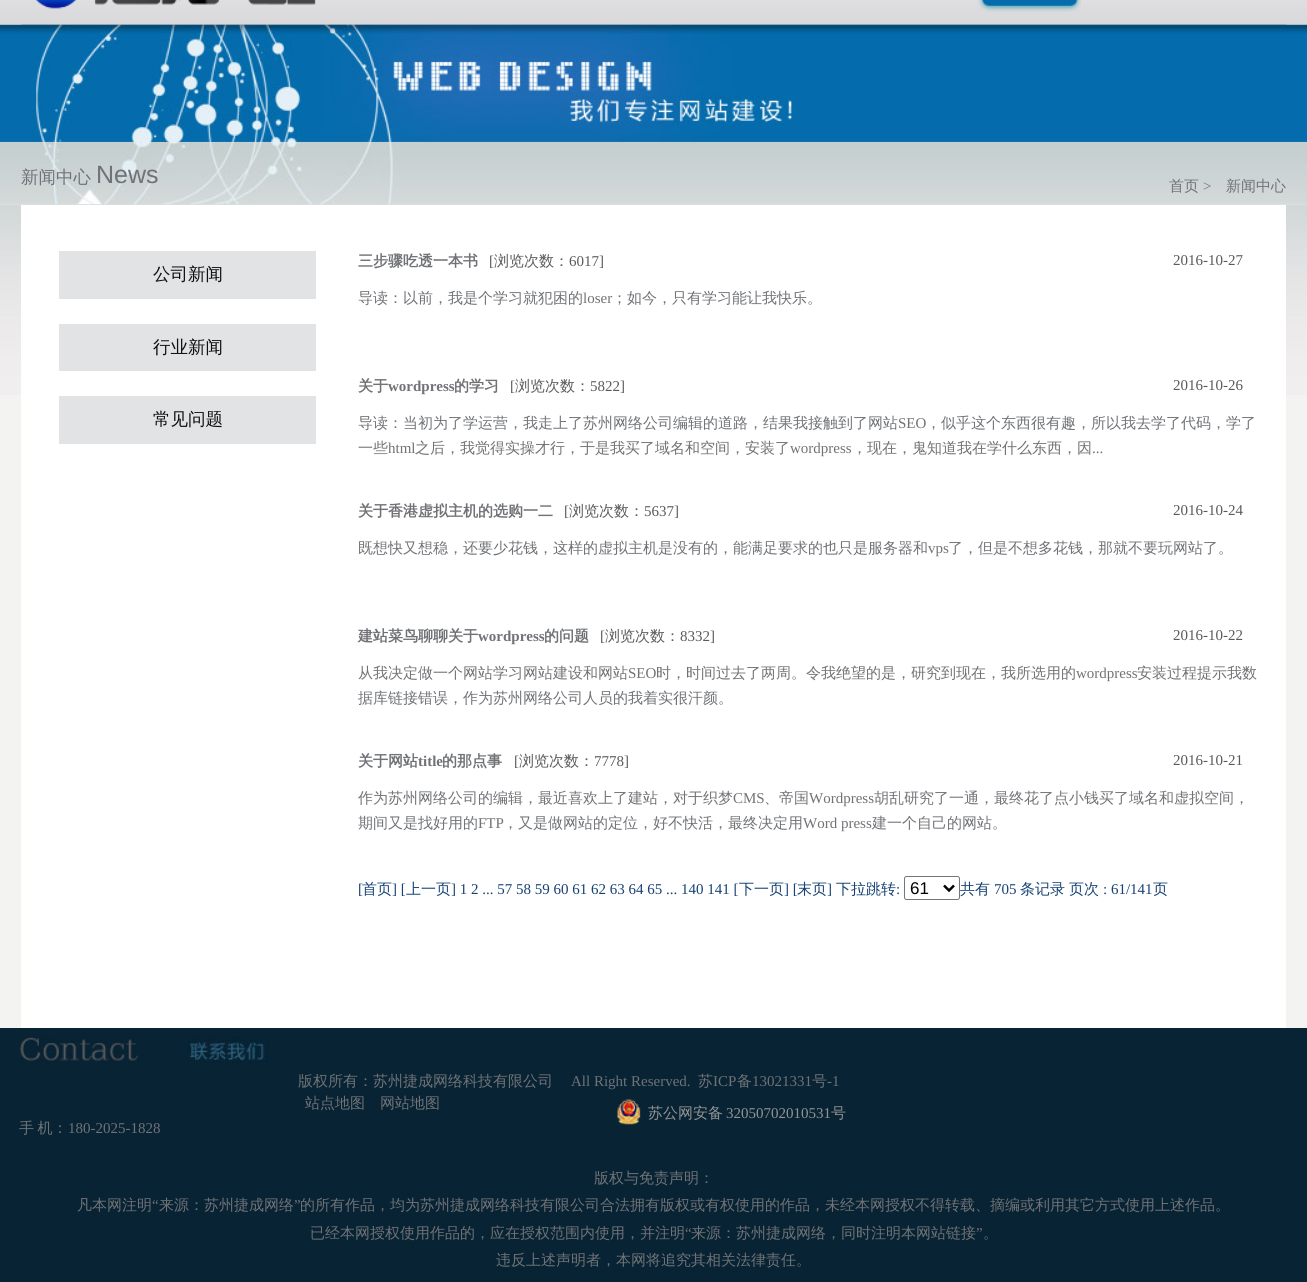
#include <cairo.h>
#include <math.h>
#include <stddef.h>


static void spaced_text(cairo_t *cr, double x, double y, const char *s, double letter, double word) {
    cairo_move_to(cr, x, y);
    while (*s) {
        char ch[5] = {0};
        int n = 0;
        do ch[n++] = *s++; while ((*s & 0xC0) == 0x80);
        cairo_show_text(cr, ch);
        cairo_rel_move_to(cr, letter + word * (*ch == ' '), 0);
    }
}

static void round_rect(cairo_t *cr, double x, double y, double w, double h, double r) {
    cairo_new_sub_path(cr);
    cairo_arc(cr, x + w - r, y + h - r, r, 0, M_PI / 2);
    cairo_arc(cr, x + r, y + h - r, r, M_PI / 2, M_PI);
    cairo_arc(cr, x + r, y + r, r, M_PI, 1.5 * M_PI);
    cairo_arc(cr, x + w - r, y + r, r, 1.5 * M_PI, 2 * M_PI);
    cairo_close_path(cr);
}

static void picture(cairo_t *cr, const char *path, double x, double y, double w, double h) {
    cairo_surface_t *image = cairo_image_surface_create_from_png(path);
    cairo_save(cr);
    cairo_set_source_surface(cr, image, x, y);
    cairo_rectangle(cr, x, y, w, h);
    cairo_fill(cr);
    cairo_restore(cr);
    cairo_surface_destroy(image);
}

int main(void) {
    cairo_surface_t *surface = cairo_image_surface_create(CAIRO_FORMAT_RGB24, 1307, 1282);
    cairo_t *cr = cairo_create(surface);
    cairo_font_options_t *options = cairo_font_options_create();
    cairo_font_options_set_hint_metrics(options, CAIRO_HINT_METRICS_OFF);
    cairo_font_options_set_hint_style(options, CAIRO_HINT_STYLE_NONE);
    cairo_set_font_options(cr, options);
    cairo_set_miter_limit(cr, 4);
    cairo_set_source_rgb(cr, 0.953, 0.953, 0.945);
    cairo_paint(cr);
    picture(cr, "img4.png", 0, 24, 1307, 118);
    picture(cr, "img5.png", 21, 24, 1266, 118);
    picture(cr, "img1.png", 0, 0, 1307, 25);
    picture(cr, "img2.png", 36, 0, 280, 9);
    picture(cr, "img3.png", 977, 0, 104, 12);
    picture(cr, "img6.png", 0, 142, 1307, 63);
    picture(cr, "img7.png", 42, 142, 351, 63);
    cairo_select_font_face(cr, "WenQuanYi Zen Hei Medium", CAIRO_FONT_SLANT_NORMAL, CAIRO_FONT_WEIGHT_NORMAL);
    cairo_set_font_size(cr, 17.5);
    cairo_set_source_rgb(cr, 0.439, 0.447, 0.463);
    cairo_move_to(cr, 21, 183);
    cairo_show_text(cr, "新闻中心");
    cairo_select_font_face(cr, "Liberation Sans", CAIRO_FONT_SLANT_NORMAL, CAIRO_FONT_WEIGHT_NORMAL);
    cairo_set_font_size(cr, 25);
    cairo_move_to(cr, 96, 183);
    cairo_show_text(cr, "News");
    cairo_select_font_face(cr, "WenQuanYi Zen Hei Medium", CAIRO_FONT_SLANT_NORMAL, CAIRO_FONT_WEIGHT_NORMAL);
    cairo_set_font_size(cr, 15);
    cairo_move_to(cr, 1169, 191);
    cairo_show_text(cr, "首页");
    cairo_select_font_face(cr, "Liberation Serif", CAIRO_FONT_SLANT_NORMAL, CAIRO_FONT_WEIGHT_NORMAL);
    cairo_move_to(cr, 1203, 191);
    cairo_show_text(cr, ">");
    cairo_select_font_face(cr, "WenQuanYi Zen Hei Medium", CAIRO_FONT_SLANT_NORMAL, CAIRO_FONT_WEIGHT_NORMAL);
    cairo_move_to(cr, 1226, 191);
    cairo_show_text(cr, "新闻中心");
    picture(cr, "img8.png", 0, 204, 1307, 191);
    cairo_set_source_rgb(cr, 1, 1, 1);
    cairo_rectangle(cr, 21, 205, 1265, 823);
    cairo_fill(cr);
    cairo_set_source_rgb(cr, 0.886, 0.89, 0.898);
    cairo_rectangle(cr, 59, 251, 257, 48);
    cairo_fill(cr);
    cairo_set_font_size(cr, 17.5);
    cairo_set_source_rgb(cr, 0.059, 0.063, 0.063);
    cairo_move_to(cr, 153, 280);
    cairo_show_text(cr, "公司新闻");
    cairo_set_source_rgb(cr, 0.886, 0.89, 0.898);
    cairo_rectangle(cr, 59, 324, 257, 47);
    cairo_fill(cr);
    cairo_set_source_rgb(cr, 0.059, 0.063, 0.063);
    cairo_move_to(cr, 153, 353);
    cairo_show_text(cr, "行业新闻");
    cairo_set_source_rgb(cr, 0.886, 0.89, 0.898);
    cairo_rectangle(cr, 59, 396, 257, 48);
    cairo_fill(cr);
    cairo_set_source_rgb(cr, 0.059, 0.063, 0.063);
    cairo_move_to(cr, 153, 425);
    cairo_show_text(cr, "常见问题");
    cairo_select_font_face(cr, "WenQuanYi Zen Hei", CAIRO_FONT_SLANT_NORMAL, CAIRO_FONT_WEIGHT_BOLD);
    cairo_set_font_size(cr, 15);
    cairo_set_source_rgb(cr, 0.439, 0.447, 0.463);
    cairo_move_to(cr, 358, 266);
    cairo_show_text(cr, "三步骤吃透一本书");
    cairo_select_font_face(cr, "Liberation Serif", CAIRO_FONT_SLANT_NORMAL, CAIRO_FONT_WEIGHT_NORMAL);
    cairo_set_source_rgb(cr, 0.349, 0.353, 0.361);
    cairo_move_to(cr, 489, 266);
    cairo_show_text(cr, "[");
    cairo_select_font_face(cr, "WenQuanYi Zen Hei Medium", CAIRO_FONT_SLANT_NORMAL, CAIRO_FONT_WEIGHT_NORMAL);
    cairo_move_to(cr, 494, 266);
    cairo_show_text(cr, "浏览次数：");
    cairo_select_font_face(cr, "Liberation Serif", CAIRO_FONT_SLANT_NORMAL, CAIRO_FONT_WEIGHT_NORMAL);
    cairo_move_to(cr, 569, 266);
    cairo_show_text(cr, "6017]");
    cairo_move_to(cr, 1173, 265);
    cairo_show_text(cr, "2016-10-27");
    cairo_select_font_face(cr, "WenQuanYi Zen Hei Medium", CAIRO_FONT_SLANT_NORMAL, CAIRO_FONT_WEIGHT_NORMAL);
    cairo_set_source_rgb(cr, 0.439, 0.447, 0.463);
    cairo_move_to(cr, 358, 303);
    cairo_show_text(cr, "导读：以前，我是个学习就犯困的");
    cairo_select_font_face(cr, "Liberation Serif", CAIRO_FONT_SLANT_NORMAL, CAIRO_FONT_WEIGHT_NORMAL);
    cairo_move_to(cr, 583, 303);
    cairo_show_text(cr, "loser");
    cairo_select_font_face(cr, "WenQuanYi Zen Hei Medium", CAIRO_FONT_SLANT_NORMAL, CAIRO_FONT_WEIGHT_NORMAL);
    cairo_move_to(cr, 612, 303);
    cairo_show_text(cr, "；如今，只有学习能让我快乐。");
    cairo_select_font_face(cr, "WenQuanYi Zen Hei", CAIRO_FONT_SLANT_NORMAL, CAIRO_FONT_WEIGHT_BOLD);
    cairo_move_to(cr, 358, 391);
    cairo_show_text(cr, "关于");
    cairo_select_font_face(cr, "Liberation Serif", CAIRO_FONT_SLANT_NORMAL, CAIRO_FONT_WEIGHT_BOLD);
    cairo_move_to(cr, 388, 391);
    cairo_show_text(cr, "wordpress");
    cairo_select_font_face(cr, "WenQuanYi Zen Hei", CAIRO_FONT_SLANT_NORMAL, CAIRO_FONT_WEIGHT_BOLD);
    cairo_move_to(cr, 454, 391);
    cairo_show_text(cr, "的学习");
    cairo_select_font_face(cr, "Liberation Serif", CAIRO_FONT_SLANT_NORMAL, CAIRO_FONT_WEIGHT_NORMAL);
    cairo_set_source_rgb(cr, 0.349, 0.353, 0.361);
    cairo_move_to(cr, 510, 391);
    cairo_show_text(cr, "[");
    cairo_select_font_face(cr, "WenQuanYi Zen Hei Medium", CAIRO_FONT_SLANT_NORMAL, CAIRO_FONT_WEIGHT_NORMAL);
    cairo_move_to(cr, 515, 391);
    cairo_show_text(cr, "浏览次数：");
    cairo_select_font_face(cr, "Liberation Serif", CAIRO_FONT_SLANT_NORMAL, CAIRO_FONT_WEIGHT_NORMAL);
    cairo_move_to(cr, 590, 391);
    cairo_show_text(cr, "5822]");
    cairo_move_to(cr, 1173, 390);
    cairo_show_text(cr, "2016-10-26");
    cairo_select_font_face(cr, "WenQuanYi Zen Hei Medium", CAIRO_FONT_SLANT_NORMAL, CAIRO_FONT_WEIGHT_NORMAL);
    cairo_set_source_rgb(cr, 0.439, 0.447, 0.463);
    cairo_move_to(cr, 358, 428);
    cairo_show_text(cr, "导读：当初为了学运营，我走上了苏州网络公司编辑的道路，结果我接触到了网站");
    cairo_select_font_face(cr, "Liberation Serif", CAIRO_FONT_SLANT_NORMAL, CAIRO_FONT_WEIGHT_NORMAL);
    cairo_move_to(cr, 898, 428);
    cairo_show_text(cr, "SEO");
    cairo_select_font_face(cr, "WenQuanYi Zen Hei Medium", CAIRO_FONT_SLANT_NORMAL, CAIRO_FONT_WEIGHT_NORMAL);
    cairo_move_to(cr, 926, 428);
    cairo_show_text(cr, "，似乎这个东西很有趣，所以我去学了代码，学了");
    cairo_move_to(cr, 358, 453);
    cairo_show_text(cr, "一些");
    cairo_select_font_face(cr, "Liberation Serif", CAIRO_FONT_SLANT_NORMAL, CAIRO_FONT_WEIGHT_NORMAL);
    cairo_move_to(cr, 388, 453);
    cairo_show_text(cr, "html");
    cairo_select_font_face(cr, "WenQuanYi Zen Hei Medium", CAIRO_FONT_SLANT_NORMAL, CAIRO_FONT_WEIGHT_NORMAL);
    cairo_move_to(cr, 415, 453);
    cairo_show_text(cr, "之后，我觉得实操才行，于是我买了域名和空间，安装了");
    cairo_select_font_face(cr, "Liberation Serif", CAIRO_FONT_SLANT_NORMAL, CAIRO_FONT_WEIGHT_NORMAL);
    cairo_move_to(cr, 790, 453);
    cairo_show_text(cr, "wordpress");
    cairo_select_font_face(cr, "WenQuanYi Zen Hei Medium", CAIRO_FONT_SLANT_NORMAL, CAIRO_FONT_WEIGHT_NORMAL);
    cairo_move_to(cr, 852, 453);
    cairo_show_text(cr, "，现在，鬼知道我在学什么东西，因");
    cairo_select_font_face(cr, "Liberation Serif", CAIRO_FONT_SLANT_NORMAL, CAIRO_FONT_WEIGHT_NORMAL);
    cairo_move_to(cr, 1092, 453);
    cairo_show_text(cr, "...");
    cairo_select_font_face(cr, "WenQuanYi Zen Hei", CAIRO_FONT_SLANT_NORMAL, CAIRO_FONT_WEIGHT_BOLD);
    cairo_move_to(cr, 358, 516);
    cairo_show_text(cr, "关于香港虚拟主机的选购一二");
    cairo_select_font_face(cr, "Liberation Serif", CAIRO_FONT_SLANT_NORMAL, CAIRO_FONT_WEIGHT_NORMAL);
    cairo_set_source_rgb(cr, 0.349, 0.353, 0.361);
    cairo_move_to(cr, 564, 516);
    cairo_show_text(cr, "[");
    cairo_select_font_face(cr, "WenQuanYi Zen Hei Medium", CAIRO_FONT_SLANT_NORMAL, CAIRO_FONT_WEIGHT_NORMAL);
    cairo_move_to(cr, 569, 516);
    cairo_show_text(cr, "浏览次数：");
    cairo_select_font_face(cr, "Liberation Serif", CAIRO_FONT_SLANT_NORMAL, CAIRO_FONT_WEIGHT_NORMAL);
    cairo_move_to(cr, 644, 516);
    cairo_show_text(cr, "5637]");
    cairo_move_to(cr, 1173, 515);
    cairo_show_text(cr, "2016-10-24");
    cairo_select_font_face(cr, "WenQuanYi Zen Hei Medium", CAIRO_FONT_SLANT_NORMAL, CAIRO_FONT_WEIGHT_NORMAL);
    cairo_set_source_rgb(cr, 0.439, 0.447, 0.463);
    cairo_move_to(cr, 358, 553);
    cairo_show_text(cr, "既想快又想稳，还要少花钱，这样的虚拟主机是没有的，能满足要求的也只是服务器和");
    cairo_select_font_face(cr, "Liberation Serif", CAIRO_FONT_SLANT_NORMAL, CAIRO_FONT_WEIGHT_NORMAL);
    cairo_move_to(cr, 928, 553);
    cairo_show_text(cr, "vps");
    cairo_select_font_face(cr, "WenQuanYi Zen Hei Medium", CAIRO_FONT_SLANT_NORMAL, CAIRO_FONT_WEIGHT_NORMAL);
    cairo_move_to(cr, 948, 553);
    cairo_show_text(cr, "了，但是不想多花钱，那就不要玩网站了。");
    cairo_select_font_face(cr, "WenQuanYi Zen Hei", CAIRO_FONT_SLANT_NORMAL, CAIRO_FONT_WEIGHT_BOLD);
    cairo_move_to(cr, 358, 641);
    cairo_show_text(cr, "建站菜鸟聊聊关于");
    cairo_select_font_face(cr, "Liberation Serif", CAIRO_FONT_SLANT_NORMAL, CAIRO_FONT_WEIGHT_BOLD);
    cairo_move_to(cr, 478, 641);
    cairo_show_text(cr, "wordpress");
    cairo_select_font_face(cr, "WenQuanYi Zen Hei", CAIRO_FONT_SLANT_NORMAL, CAIRO_FONT_WEIGHT_BOLD);
    cairo_move_to(cr, 544, 641);
    cairo_show_text(cr, "的问题");
    cairo_select_font_face(cr, "Liberation Serif", CAIRO_FONT_SLANT_NORMAL, CAIRO_FONT_WEIGHT_NORMAL);
    cairo_set_source_rgb(cr, 0.349, 0.353, 0.361);
    cairo_move_to(cr, 600, 641);
    cairo_show_text(cr, "[");
    cairo_select_font_face(cr, "WenQuanYi Zen Hei Medium", CAIRO_FONT_SLANT_NORMAL, CAIRO_FONT_WEIGHT_NORMAL);
    cairo_move_to(cr, 605, 641);
    cairo_show_text(cr, "浏览次数：");
    cairo_select_font_face(cr, "Liberation Serif", CAIRO_FONT_SLANT_NORMAL, CAIRO_FONT_WEIGHT_NORMAL);
    cairo_move_to(cr, 680, 641);
    cairo_show_text(cr, "8332]");
    cairo_move_to(cr, 1173, 640);
    cairo_show_text(cr, "2016-10-22");
    cairo_select_font_face(cr, "WenQuanYi Zen Hei Medium", CAIRO_FONT_SLANT_NORMAL, CAIRO_FONT_WEIGHT_NORMAL);
    cairo_set_source_rgb(cr, 0.439, 0.447, 0.463);
    cairo_move_to(cr, 358, 678);
    cairo_show_text(cr, "从我决定做一个网站学习网站建设和网站");
    cairo_select_font_face(cr, "Liberation Serif", CAIRO_FONT_SLANT_NORMAL, CAIRO_FONT_WEIGHT_NORMAL);
    cairo_move_to(cr, 628, 678);
    cairo_show_text(cr, "SEO");
    cairo_select_font_face(cr, "WenQuanYi Zen Hei Medium", CAIRO_FONT_SLANT_NORMAL, CAIRO_FONT_WEIGHT_NORMAL);
    cairo_move_to(cr, 656, 678);
    cairo_show_text(cr, "时，时间过去了两周。令我绝望的是，研究到现在，我所选用的");
    cairo_select_font_face(cr, "Liberation Serif", CAIRO_FONT_SLANT_NORMAL, CAIRO_FONT_WEIGHT_NORMAL);
    cairo_move_to(cr, 1076, 678);
    cairo_show_text(cr, "wordpress");
    cairo_select_font_face(cr, "WenQuanYi Zen Hei Medium", CAIRO_FONT_SLANT_NORMAL, CAIRO_FONT_WEIGHT_NORMAL);
    cairo_move_to(cr, 1137, 678);
    cairo_show_text(cr, "安装过程提示我数");
    cairo_move_to(cr, 358, 703);
    cairo_show_text(cr, "据库链接错误，作为苏州网络公司人员的我着实很汗颜。");
    cairo_select_font_face(cr, "WenQuanYi Zen Hei", CAIRO_FONT_SLANT_NORMAL, CAIRO_FONT_WEIGHT_BOLD);
    cairo_move_to(cr, 358, 766);
    cairo_show_text(cr, "关于网站");
    cairo_select_font_face(cr, "Liberation Serif", CAIRO_FONT_SLANT_NORMAL, CAIRO_FONT_WEIGHT_BOLD);
    cairo_move_to(cr, 418, 766);
    cairo_show_text(cr, "title");
    cairo_select_font_face(cr, "WenQuanYi Zen Hei", CAIRO_FONT_SLANT_NORMAL, CAIRO_FONT_WEIGHT_BOLD);
    cairo_move_to(cr, 442, 766);
    cairo_show_text(cr, "的那点事");
    cairo_select_font_face(cr, "Liberation Serif", CAIRO_FONT_SLANT_NORMAL, CAIRO_FONT_WEIGHT_NORMAL);
    cairo_set_source_rgb(cr, 0.349, 0.353, 0.361);
    cairo_move_to(cr, 514, 766);
    cairo_show_text(cr, "[");
    cairo_select_font_face(cr, "WenQuanYi Zen Hei Medium", CAIRO_FONT_SLANT_NORMAL, CAIRO_FONT_WEIGHT_NORMAL);
    cairo_move_to(cr, 519, 766);
    cairo_show_text(cr, "浏览次数：");
    cairo_select_font_face(cr, "Liberation Serif", CAIRO_FONT_SLANT_NORMAL, CAIRO_FONT_WEIGHT_NORMAL);
    cairo_move_to(cr, 594, 766);
    cairo_show_text(cr, "7778]");
    cairo_move_to(cr, 1173, 765);
    cairo_show_text(cr, "2016-10-21");
    cairo_select_font_face(cr, "WenQuanYi Zen Hei Medium", CAIRO_FONT_SLANT_NORMAL, CAIRO_FONT_WEIGHT_NORMAL);
    cairo_set_source_rgb(cr, 0.439, 0.447, 0.463);
    cairo_move_to(cr, 358, 803);
    cairo_show_text(cr, "作为苏州网络公司的编辑，最近喜欢上了建站，对于织梦");
    cairo_select_font_face(cr, "Liberation Serif", CAIRO_FONT_SLANT_NORMAL, CAIRO_FONT_WEIGHT_NORMAL);
    cairo_move_to(cr, 733, 803);
    cairo_show_text(cr, "CMS");
    cairo_select_font_face(cr, "WenQuanYi Zen Hei Medium", CAIRO_FONT_SLANT_NORMAL, CAIRO_FONT_WEIGHT_NORMAL);
    cairo_move_to(cr, 764, 803);
    cairo_show_text(cr, "、帝国");
    cairo_select_font_face(cr, "Liberation Serif", CAIRO_FONT_SLANT_NORMAL, CAIRO_FONT_WEIGHT_NORMAL);
    cairo_move_to(cr, 809, 803);
    cairo_show_text(cr, "Wordpress");
    cairo_select_font_face(cr, "WenQuanYi Zen Hei Medium", CAIRO_FONT_SLANT_NORMAL, CAIRO_FONT_WEIGHT_NORMAL);
    cairo_move_to(cr, 874, 803);
    cairo_show_text(cr, "胡乱研究了一通，最终花了点小钱买了域名和虚拟空间，");
    cairo_move_to(cr, 358, 828);
    cairo_show_text(cr, "期间又是找好用的");
    cairo_select_font_face(cr, "Liberation Serif", CAIRO_FONT_SLANT_NORMAL, CAIRO_FONT_WEIGHT_NORMAL);
    cairo_move_to(cr, 478, 828);
    cairo_show_text(cr, "FTP");
    cairo_select_font_face(cr, "WenQuanYi Zen Hei Medium", CAIRO_FONT_SLANT_NORMAL, CAIRO_FONT_WEIGHT_NORMAL);
    cairo_move_to(cr, 503, 828);
    cairo_show_text(cr, "，又是做网站的定位，好不快活，最终决定用");
    cairo_select_font_face(cr, "Liberation Serif", CAIRO_FONT_SLANT_NORMAL, CAIRO_FONT_WEIGHT_NORMAL);
    cairo_move_to(cr, 803, 828);
    cairo_show_text(cr, "Word press");
    cairo_select_font_face(cr, "WenQuanYi Zen Hei Medium", CAIRO_FONT_SLANT_NORMAL, CAIRO_FONT_WEIGHT_NORMAL);
    cairo_move_to(cr, 872, 828);
    cairo_show_text(cr, "建一个自己的网站。");
    cairo_select_font_face(cr, "Liberation Serif", CAIRO_FONT_SLANT_NORMAL, CAIRO_FONT_WEIGHT_NORMAL);
    cairo_set_source_rgb(cr, 0.086, 0.259, 0.455);
    cairo_move_to(cr, 358, 894);
    cairo_show_text(cr, "[");
    cairo_select_font_face(cr, "WenQuanYi Zen Hei Medium", CAIRO_FONT_SLANT_NORMAL, CAIRO_FONT_WEIGHT_NORMAL);
    cairo_move_to(cr, 362, 894);
    cairo_show_text(cr, "首页");
    cairo_select_font_face(cr, "Liberation Serif", CAIRO_FONT_SLANT_NORMAL, CAIRO_FONT_WEIGHT_NORMAL);
    cairo_move_to(cr, 392, 894);
    cairo_show_text(cr, "] [");
    cairo_select_font_face(cr, "WenQuanYi Zen Hei Medium", CAIRO_FONT_SLANT_NORMAL, CAIRO_FONT_WEIGHT_NORMAL);
    cairo_move_to(cr, 406, 894);
    cairo_show_text(cr, "上一页");
    cairo_select_font_face(cr, "Liberation Serif", CAIRO_FONT_SLANT_NORMAL, CAIRO_FONT_WEIGHT_NORMAL);
    cairo_move_to(cr, 451, 894);
    cairo_show_text(cr, "] 1 2 ... 57 58 59 60 61 62 63 64 65 ... 140 141 [");
    cairo_select_font_face(cr, "WenQuanYi Zen Hei Medium", CAIRO_FONT_SLANT_NORMAL, CAIRO_FONT_WEIGHT_NORMAL);
    cairo_move_to(cr, 739, 894);
    cairo_show_text(cr, "下一页");
    cairo_select_font_face(cr, "Liberation Serif", CAIRO_FONT_SLANT_NORMAL, CAIRO_FONT_WEIGHT_NORMAL);
    cairo_move_to(cr, 784, 894);
    cairo_show_text(cr, "] [");
    cairo_select_font_face(cr, "WenQuanYi Zen Hei Medium", CAIRO_FONT_SLANT_NORMAL, CAIRO_FONT_WEIGHT_NORMAL);
    cairo_move_to(cr, 797, 894);
    cairo_show_text(cr, "末页");
    cairo_select_font_face(cr, "Liberation Serif", CAIRO_FONT_SLANT_NORMAL, CAIRO_FONT_WEIGHT_NORMAL);
    cairo_move_to(cr, 827, 894);
    cairo_show_text(cr, "]");
    cairo_select_font_face(cr, "WenQuanYi Zen Hei Medium", CAIRO_FONT_SLANT_NORMAL, CAIRO_FONT_WEIGHT_NORMAL);
    cairo_move_to(cr, 836, 894);
    cairo_show_text(cr, "下拉跳转");
    cairo_select_font_face(cr, "Liberation Serif", CAIRO_FONT_SLANT_NORMAL, CAIRO_FONT_WEIGHT_NORMAL);
    cairo_move_to(cr, 896, 894);
    cairo_show_text(cr, ":");
    round_rect(cr, 904.5, 876.5, 55, 23, 2);
    cairo_set_source_rgb(cr, 0.463, 0.463, 0.463);
    cairo_set_line_width(cr, 1);
    cairo_stroke(cr);
    cairo_new_path(cr);
    cairo_move_to(cr, 944, 885.5);
    cairo_line_to(cr, 949, 890.5);
    cairo_line_to(cr, 954, 885.5);
    cairo_set_source_rgb(cr, 0, 0, 0);
    cairo_set_line_width(cr, 2.5);
    cairo_stroke(cr);
    cairo_select_font_face(cr, "Liberation Sans", CAIRO_FONT_SLANT_NORMAL, CAIRO_FONT_WEIGHT_NORMAL);
    cairo_set_font_size(cr, 17);
    cairo_move_to(cr, 910, 894);
    cairo_show_text(cr, "61");
    cairo_select_font_face(cr, "WenQuanYi Zen Hei Medium", CAIRO_FONT_SLANT_NORMAL, CAIRO_FONT_WEIGHT_NORMAL);
    cairo_set_font_size(cr, 15);
    cairo_set_source_rgb(cr, 0.086, 0.259, 0.455);
    cairo_move_to(cr, 960, 894);
    cairo_show_text(cr, "共有");
    cairo_select_font_face(cr, "Liberation Serif", CAIRO_FONT_SLANT_NORMAL, CAIRO_FONT_WEIGHT_NORMAL);
    cairo_move_to(cr, 994, 894);
    cairo_show_text(cr, "705");
    cairo_select_font_face(cr, "WenQuanYi Zen Hei Medium", CAIRO_FONT_SLANT_NORMAL, CAIRO_FONT_WEIGHT_NORMAL);
    cairo_move_to(cr, 1020, 894);
    cairo_show_text(cr, "条记录");
    cairo_move_to(cr, 1069, 894);
    cairo_show_text(cr, "页次");
    cairo_select_font_face(cr, "Liberation Serif", CAIRO_FONT_SLANT_NORMAL, CAIRO_FONT_WEIGHT_NORMAL);
    cairo_move_to(cr, 1103, 894);
    cairo_show_text(cr, ": 61/141");
    cairo_select_font_face(cr, "WenQuanYi Zen Hei Medium", CAIRO_FONT_SLANT_NORMAL, CAIRO_FONT_WEIGHT_NORMAL);
    cairo_move_to(cr, 1153, 894);
    cairo_show_text(cr, "页");
    cairo_set_source_rgb(cr, 0.031, 0.137, 0.204);
    cairo_rectangle(cr, 0, 1028, 1307, 254);
    cairo_fill(cr);
    cairo_set_source_rgb(cr, 0.439, 0.447, 0.463);
    cairo_move_to(cr, 298, 1086);
    cairo_show_text(cr, "版权所有：苏州捷成网络科技有限公司");
    cairo_select_font_face(cr, "Liberation Serif", CAIRO_FONT_SLANT_NORMAL, CAIRO_FONT_WEIGHT_NORMAL);
    cairo_move_to(cr, 571, 1086);
    cairo_show_text(cr, "All Right Reserved.");
    cairo_select_font_face(cr, "WenQuanYi Zen Hei Medium", CAIRO_FONT_SLANT_NORMAL, CAIRO_FONT_WEIGHT_NORMAL);
    cairo_move_to(cr, 698, 1086);
    cairo_show_text(cr, "苏");
    cairo_select_font_face(cr, "Liberation Serif", CAIRO_FONT_SLANT_NORMAL, CAIRO_FONT_WEIGHT_NORMAL);
    cairo_move_to(cr, 713, 1086);
    cairo_show_text(cr, "ICP");
    cairo_select_font_face(cr, "WenQuanYi Zen Hei Medium", CAIRO_FONT_SLANT_NORMAL, CAIRO_FONT_WEIGHT_NORMAL);
    cairo_move_to(cr, 737, 1086);
    cairo_show_text(cr, "备");
    cairo_select_font_face(cr, "Liberation Serif", CAIRO_FONT_SLANT_NORMAL, CAIRO_FONT_WEIGHT_NORMAL);
    cairo_move_to(cr, 752, 1086);
    cairo_show_text(cr, "13021331");
    cairo_select_font_face(cr, "WenQuanYi Zen Hei Medium", CAIRO_FONT_SLANT_NORMAL, CAIRO_FONT_WEIGHT_NORMAL);
    cairo_move_to(cr, 812, 1086);
    cairo_show_text(cr, "号");
    cairo_select_font_face(cr, "Liberation Serif", CAIRO_FONT_SLANT_NORMAL, CAIRO_FONT_WEIGHT_NORMAL);
    cairo_move_to(cr, 827, 1086);
    cairo_show_text(cr, "-1");
    cairo_select_font_face(cr, "WenQuanYi Zen Hei Medium", CAIRO_FONT_SLANT_NORMAL, CAIRO_FONT_WEIGHT_NORMAL);
    cairo_move_to(cr, 305, 1108);
    cairo_show_text(cr, "站点地图");
    cairo_move_to(cr, 380, 1108);
    cairo_show_text(cr, "网站地图");
    picture(cr, "img9.png", 617, 1099, 24, 26);
    cairo_set_source_rgb(cr, 0.576, 0.576, 0.576);
    cairo_move_to(cr, 648, 1118);
    cairo_show_text(cr, "苏公网安备");
    cairo_select_font_face(cr, "Liberation Serif", CAIRO_FONT_SLANT_NORMAL, CAIRO_FONT_WEIGHT_NORMAL);
    cairo_move_to(cr, 726, 1118);
    cairo_show_text(cr, "32050702010531");
    cairo_select_font_face(cr, "WenQuanYi Zen Hei Medium", CAIRO_FONT_SLANT_NORMAL, CAIRO_FONT_WEIGHT_NORMAL);
    cairo_move_to(cr, 831, 1118);
    cairo_show_text(cr, "号");
    picture(cr, "img10.png", 20, 1036, 248, 27);
    cairo_set_source_rgb(cr, 0.439, 0.447, 0.463);
    spaced_text(cr, 19, 1133, "手 机：", 0, -1);
    cairo_select_font_face(cr, "Liberation Serif", CAIRO_FONT_SLANT_NORMAL, CAIRO_FONT_WEIGHT_NORMAL);
    cairo_move_to(cr, 68, 1133);
    cairo_show_text(cr, "180-2025-1828");
    cairo_select_font_face(cr, "WenQuanYi Zen Hei Medium", CAIRO_FONT_SLANT_NORMAL, CAIRO_FONT_WEIGHT_NORMAL);
    cairo_move_to(cr, 594, 1183);
    cairo_show_text(cr, "版权与免责声明：");
    cairo_move_to(cr, 77, 1210);
    cairo_show_text(cr, "凡本网注明");
    cairo_select_font_face(cr, "Liberation Serif", CAIRO_FONT_SLANT_NORMAL, CAIRO_FONT_WEIGHT_NORMAL);
    cairo_move_to(cr, 152, 1210);
    cairo_show_text(cr, "“");
    cairo_select_font_face(cr, "WenQuanYi Zen Hei Medium", CAIRO_FONT_SLANT_NORMAL, CAIRO_FONT_WEIGHT_NORMAL);
    cairo_move_to(cr, 159, 1210);
    cairo_show_text(cr, "来源：苏州捷成网络");
    cairo_select_font_face(cr, "Liberation Serif", CAIRO_FONT_SLANT_NORMAL, CAIRO_FONT_WEIGHT_NORMAL);
    cairo_move_to(cr, 294, 1210);
    cairo_show_text(cr, "”");
    cairo_select_font_face(cr, "WenQuanYi Zen Hei Medium", CAIRO_FONT_SLANT_NORMAL, CAIRO_FONT_WEIGHT_NORMAL);
    cairo_move_to(cr, 300, 1210);
    cairo_show_text(cr, "的所有作品，均为苏州捷成网络科技有限公司合法拥有版权或有权使用的作品，未经本网授权不得转载、摘编或利用其它方式使用上述作品。");
    cairo_move_to(cr, 310, 1238);
    cairo_show_text(cr, "已经本网授权使用作品的，应在授权范围内使用，并注明");
    cairo_select_font_face(cr, "Liberation Serif", CAIRO_FONT_SLANT_NORMAL, CAIRO_FONT_WEIGHT_NORMAL);
    cairo_move_to(cr, 685, 1238);
    cairo_show_text(cr, "“");
    cairo_select_font_face(cr, "WenQuanYi Zen Hei Medium", CAIRO_FONT_SLANT_NORMAL, CAIRO_FONT_WEIGHT_NORMAL);
    cairo_move_to(cr, 691, 1238);
    cairo_show_text(cr, "来源：苏州捷成网络，同时注明本网站链接");
    cairo_select_font_face(cr, "Liberation Serif", CAIRO_FONT_SLANT_NORMAL, CAIRO_FONT_WEIGHT_NORMAL);
    cairo_move_to(cr, 976, 1238);
    cairo_show_text(cr, "”");
    cairo_select_font_face(cr, "WenQuanYi Zen Hei Medium", CAIRO_FONT_SLANT_NORMAL, CAIRO_FONT_WEIGHT_NORMAL);
    cairo_move_to(cr, 983, 1238);
    cairo_show_text(cr, "。");
    cairo_move_to(cr, 496, 1265);
    cairo_show_text(cr, "违反上述声明者，本网将追究其相关法律责任。");
    cairo_surface_write_to_png(surface, "page.png");
    cairo_font_options_destroy(options);
    cairo_destroy(cr);
    cairo_surface_destroy(surface);
    return 0;
}
